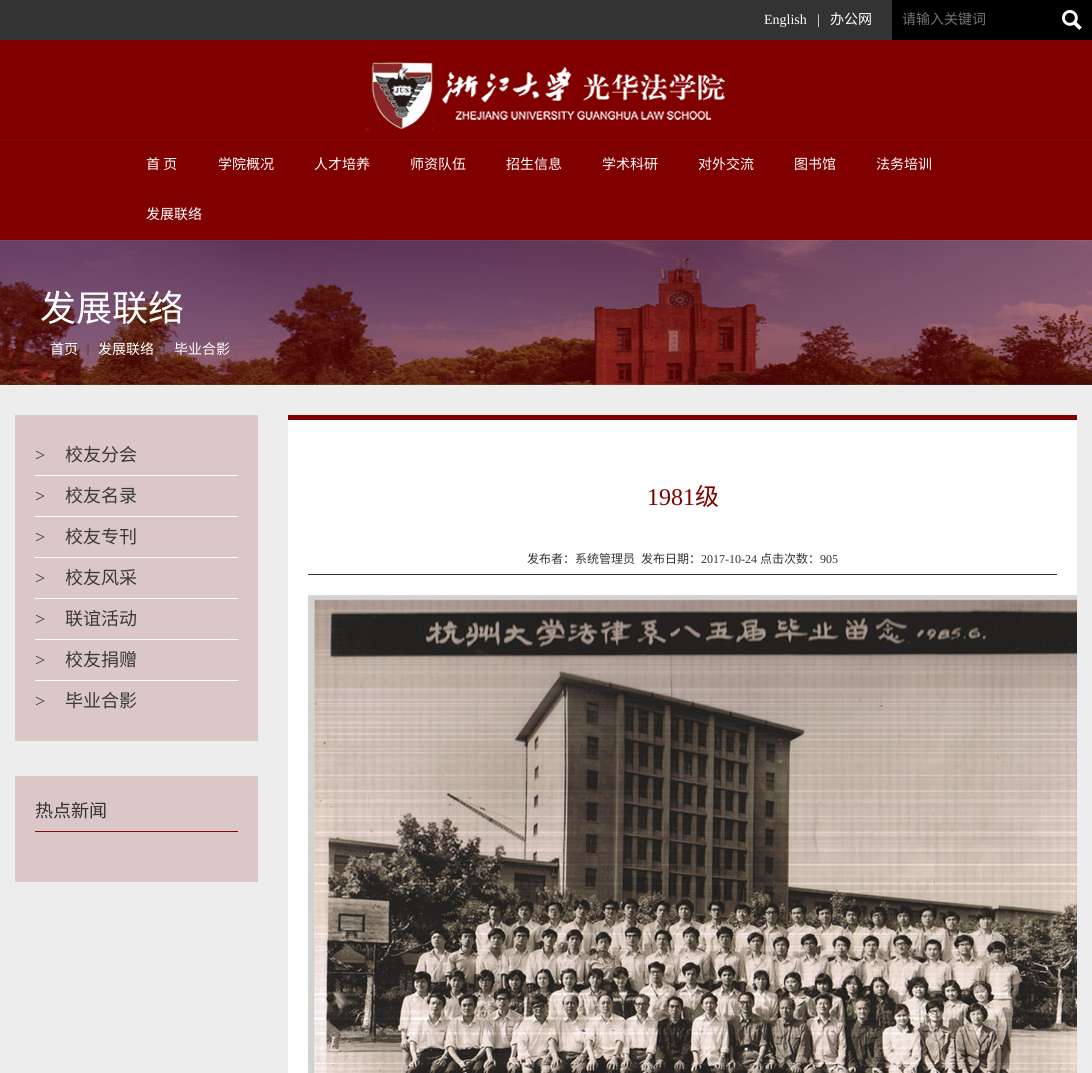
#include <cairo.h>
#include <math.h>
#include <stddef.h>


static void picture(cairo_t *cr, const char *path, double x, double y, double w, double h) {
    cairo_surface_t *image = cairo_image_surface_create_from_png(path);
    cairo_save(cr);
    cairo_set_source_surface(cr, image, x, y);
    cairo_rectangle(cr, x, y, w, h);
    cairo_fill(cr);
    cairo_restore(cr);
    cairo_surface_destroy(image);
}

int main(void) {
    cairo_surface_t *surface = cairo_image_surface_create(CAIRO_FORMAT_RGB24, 1092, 1073);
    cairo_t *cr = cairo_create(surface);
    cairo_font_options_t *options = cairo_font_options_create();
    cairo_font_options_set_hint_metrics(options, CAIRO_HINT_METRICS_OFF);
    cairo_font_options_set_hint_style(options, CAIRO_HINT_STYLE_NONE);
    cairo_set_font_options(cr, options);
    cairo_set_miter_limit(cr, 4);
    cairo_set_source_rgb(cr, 0.929, 0.929, 0.929);
    cairo_paint(cr);
    cairo_set_source_rgb(cr, 0.2, 0.2, 0.2);
    cairo_rectangle(cr, 0, 0, 892, 40);
    cairo_fill(cr);
    cairo_select_font_face(cr, "Liberation Serif", CAIRO_FONT_SLANT_NORMAL, CAIRO_FONT_WEIGHT_NORMAL);
    cairo_set_font_size(cr, 14);
    cairo_set_source_rgb(cr, 1, 1, 1);
    cairo_move_to(cr, 764, 24);
    cairo_show_text(cr, "English");
    cairo_move_to(cr, 817, 24);
    cairo_show_text(cr, "|");
    cairo_select_font_face(cr, "Noto Sans CJK SC", CAIRO_FONT_SLANT_NORMAL, CAIRO_FONT_WEIGHT_NORMAL);
    cairo_move_to(cr, 830, 24);
    cairo_show_text(cr, "办公网");
    cairo_set_source_rgb(cr, 0, 0, 0);
    cairo_rectangle(cr, 892, 0, 200, 40);
    cairo_fill(cr);
    cairo_set_source_rgb(cr, 0.459, 0.459, 0.459);
    cairo_move_to(cr, 902, 24);
    cairo_show_text(cr, "请输入关键词");
    picture(cr, "img1.png", 1062, 10, 20, 20);
    cairo_set_source_rgb(cr, 0.502, 0, 0);
    cairo_rectangle(cr, 0, 40, 1092, 98);
    cairo_fill(cr);
    picture(cr, "img2.png", 366, 61, 359, 70);
    cairo_set_source_rgb(cr, 0.404, 0, 0);
    cairo_rectangle(cr, 0, 138, 1092, 1);
    cairo_fill(cr);
    cairo_set_source_rgb(cr, 0.604, 0, 0);
    cairo_rectangle(cr, 0, 139, 1092, 1);
    cairo_fill(cr);
    cairo_set_source_rgb(cr, 0.502, 0, 0);
    cairo_rectangle(cr, 0, 140, 1092, 100);
    cairo_fill(cr);
    cairo_set_source_rgb(cr, 1, 1, 1);
    cairo_move_to(cr, 146, 169);
    cairo_show_text(cr, "首 页");
    cairo_move_to(cr, 218, 169);
    cairo_show_text(cr, "学院概况");
    cairo_move_to(cr, 314, 169);
    cairo_show_text(cr, "人才培养");
    cairo_move_to(cr, 410, 169);
    cairo_show_text(cr, "师资队伍");
    cairo_move_to(cr, 506, 169);
    cairo_show_text(cr, "招生信息");
    cairo_move_to(cr, 602, 169);
    cairo_show_text(cr, "学术科研");
    cairo_move_to(cr, 698, 169);
    cairo_show_text(cr, "对外交流");
    cairo_move_to(cr, 794, 169);
    cairo_show_text(cr, "图书馆");
    cairo_move_to(cr, 876, 169);
    cairo_show_text(cr, "法务培训");
    cairo_move_to(cr, 146, 219);
    cairo_show_text(cr, "发展联络");
    picture(cr, "img3.png", 0, 240, 1092, 145);
    cairo_set_font_size(cr, 36);
    cairo_move_to(cr, 40, 321);
    cairo_show_text(cr, "发展联络");
    cairo_set_font_size(cr, 14);
    cairo_move_to(cr, 50, 354);
    cairo_show_text(cr, "首页");
    cairo_set_source_rgba(cr, 0.267, 0.267, 0.267, 0.5);
    cairo_rectangle(cr, 87, 344, 2, 12);
    cairo_fill(cr);
    cairo_set_source_rgb(cr, 1, 1, 1);
    cairo_move_to(cr, 98, 354);
    cairo_show_text(cr, "发展联络");
    cairo_set_source_rgba(cr, 0.267, 0.267, 0.267, 0.5);
    cairo_rectangle(cr, 163, 344, 2, 12);
    cairo_fill(cr);
    cairo_set_source_rgb(cr, 1, 1, 1);
    cairo_move_to(cr, 174, 354);
    cairo_show_text(cr, "毕业合影");
    cairo_set_source_rgb(cr, 0.859, 0.78, 0.78);
    cairo_rectangle(cr, 15, 415, 243, 326);
    cairo_fill(cr);
    cairo_set_source_rgb(cr, 1, 1, 1);
    cairo_rectangle(cr, 35, 475, 203, 1);
    cairo_fill(cr);
    cairo_select_font_face(cr, "Liberation Serif", CAIRO_FONT_SLANT_NORMAL, CAIRO_FONT_WEIGHT_NORMAL);
    cairo_set_font_size(cr, 18);
    cairo_set_source_rgb(cr, 0.227, 0.227, 0.227);
    cairo_move_to(cr, 35, 461);
    cairo_show_text(cr, ">");
    cairo_select_font_face(cr, "Noto Sans CJK SC", CAIRO_FONT_SLANT_NORMAL, CAIRO_FONT_WEIGHT_NORMAL);
    cairo_move_to(cr, 65, 461);
    cairo_show_text(cr, "校友分会");
    cairo_set_source_rgb(cr, 1, 1, 1);
    cairo_rectangle(cr, 35, 516, 203, 1);
    cairo_fill(cr);
    cairo_select_font_face(cr, "Liberation Serif", CAIRO_FONT_SLANT_NORMAL, CAIRO_FONT_WEIGHT_NORMAL);
    cairo_set_source_rgb(cr, 0.227, 0.227, 0.227);
    cairo_move_to(cr, 35, 502);
    cairo_show_text(cr, ">");
    cairo_select_font_face(cr, "Noto Sans CJK SC", CAIRO_FONT_SLANT_NORMAL, CAIRO_FONT_WEIGHT_NORMAL);
    cairo_move_to(cr, 65, 502);
    cairo_show_text(cr, "校友名录");
    cairo_set_source_rgb(cr, 1, 1, 1);
    cairo_rectangle(cr, 35, 557, 203, 1);
    cairo_fill(cr);
    cairo_select_font_face(cr, "Liberation Serif", CAIRO_FONT_SLANT_NORMAL, CAIRO_FONT_WEIGHT_NORMAL);
    cairo_set_source_rgb(cr, 0.227, 0.227, 0.227);
    cairo_move_to(cr, 35, 543);
    cairo_show_text(cr, ">");
    cairo_select_font_face(cr, "Noto Sans CJK SC", CAIRO_FONT_SLANT_NORMAL, CAIRO_FONT_WEIGHT_NORMAL);
    cairo_move_to(cr, 65, 543);
    cairo_show_text(cr, "校友专刊");
    cairo_set_source_rgb(cr, 1, 1, 1);
    cairo_rectangle(cr, 35, 598, 203, 1);
    cairo_fill(cr);
    cairo_select_font_face(cr, "Liberation Serif", CAIRO_FONT_SLANT_NORMAL, CAIRO_FONT_WEIGHT_NORMAL);
    cairo_set_source_rgb(cr, 0.227, 0.227, 0.227);
    cairo_move_to(cr, 35, 584);
    cairo_show_text(cr, ">");
    cairo_select_font_face(cr, "Noto Sans CJK SC", CAIRO_FONT_SLANT_NORMAL, CAIRO_FONT_WEIGHT_NORMAL);
    cairo_move_to(cr, 65, 584);
    cairo_show_text(cr, "校友风采");
    cairo_set_source_rgb(cr, 1, 1, 1);
    cairo_rectangle(cr, 35, 639, 203, 1);
    cairo_fill(cr);
    cairo_select_font_face(cr, "Liberation Serif", CAIRO_FONT_SLANT_NORMAL, CAIRO_FONT_WEIGHT_NORMAL);
    cairo_set_source_rgb(cr, 0.227, 0.227, 0.227);
    cairo_move_to(cr, 35, 625);
    cairo_show_text(cr, ">");
    cairo_select_font_face(cr, "Noto Sans CJK SC", CAIRO_FONT_SLANT_NORMAL, CAIRO_FONT_WEIGHT_NORMAL);
    cairo_move_to(cr, 65, 625);
    cairo_show_text(cr, "联谊活动");
    cairo_set_source_rgb(cr, 1, 1, 1);
    cairo_rectangle(cr, 35, 680, 203, 1);
    cairo_fill(cr);
    cairo_select_font_face(cr, "Liberation Serif", CAIRO_FONT_SLANT_NORMAL, CAIRO_FONT_WEIGHT_NORMAL);
    cairo_set_source_rgb(cr, 0.227, 0.227, 0.227);
    cairo_move_to(cr, 35, 666);
    cairo_show_text(cr, ">");
    cairo_select_font_face(cr, "Noto Sans CJK SC", CAIRO_FONT_SLANT_NORMAL, CAIRO_FONT_WEIGHT_NORMAL);
    cairo_move_to(cr, 65, 666);
    cairo_show_text(cr, "校友捐赠");
    cairo_select_font_face(cr, "Liberation Serif", CAIRO_FONT_SLANT_NORMAL, CAIRO_FONT_WEIGHT_NORMAL);
    cairo_move_to(cr, 35, 707);
    cairo_show_text(cr, ">");
    cairo_select_font_face(cr, "Noto Sans CJK SC", CAIRO_FONT_SLANT_NORMAL, CAIRO_FONT_WEIGHT_NORMAL);
    cairo_move_to(cr, 65, 707);
    cairo_show_text(cr, "毕业合影");
    cairo_set_source_rgb(cr, 0.859, 0.78, 0.78);
    cairo_rectangle(cr, 15, 776, 243, 106);
    cairo_fill(cr);
    cairo_set_source_rgb(cr, 0.522, 0.039, 0.039);
    cairo_rectangle(cr, 35, 831, 203, 1);
    cairo_fill(cr);
    cairo_set_source_rgb(cr, 0.2, 0.2, 0.2);
    cairo_move_to(cr, 35, 817);
    cairo_show_text(cr, "热点新闻");
    cairo_set_source_rgb(cr, 1, 1, 1);
    cairo_rectangle(cr, 288, 420, 789, 653);
    cairo_fill(cr);
    cairo_set_source_rgb(cr, 0.502, 0, 0);
    cairo_rectangle(cr, 288, 415, 789, 5);
    cairo_fill(cr);
    cairo_select_font_face(cr, "Liberation Serif", CAIRO_FONT_SLANT_NORMAL, CAIRO_FONT_WEIGHT_NORMAL);
    cairo_set_font_size(cr, 24);
    cairo_move_to(cr, 647, 505);
    cairo_show_text(cr, "1981");
    cairo_select_font_face(cr, "Noto Sans CJK SC", CAIRO_FONT_SLANT_NORMAL, CAIRO_FONT_WEIGHT_NORMAL);
    cairo_move_to(cr, 695, 505);
    cairo_show_text(cr, "级");
    cairo_set_source_rgb(cr, 0.2, 0.2, 0.2);
    cairo_rectangle(cr, 308, 574, 749, 1);
    cairo_fill(cr);
    cairo_set_font_size(cr, 12);
    cairo_move_to(cr, 527, 563);
    cairo_show_text(cr, "发布者：系统管理员");
    cairo_move_to(cr, 641, 563);
    cairo_show_text(cr, "发布日期：");
    cairo_select_font_face(cr, "Liberation Serif", CAIRO_FONT_SLANT_NORMAL, CAIRO_FONT_WEIGHT_NORMAL);
    cairo_move_to(cr, 701, 563);
    cairo_show_text(cr, "2017-10-24");
    cairo_select_font_face(cr, "Noto Sans CJK SC", CAIRO_FONT_SLANT_NORMAL, CAIRO_FONT_WEIGHT_NORMAL);
    cairo_move_to(cr, 760, 563);
    cairo_show_text(cr, "点击次数：");
    cairo_select_font_face(cr, "Liberation Serif", CAIRO_FONT_SLANT_NORMAL, CAIRO_FONT_WEIGHT_NORMAL);
    cairo_move_to(cr, 820, 563);
    cairo_show_text(cr, "905");
    picture(cr, "img4.png", 308, 595, 769, 478);
    cairo_surface_write_to_png(surface, "page.png");
    cairo_font_options_destroy(options);
    cairo_destroy(cr);
    cairo_surface_destroy(surface);
    return 0;
}
